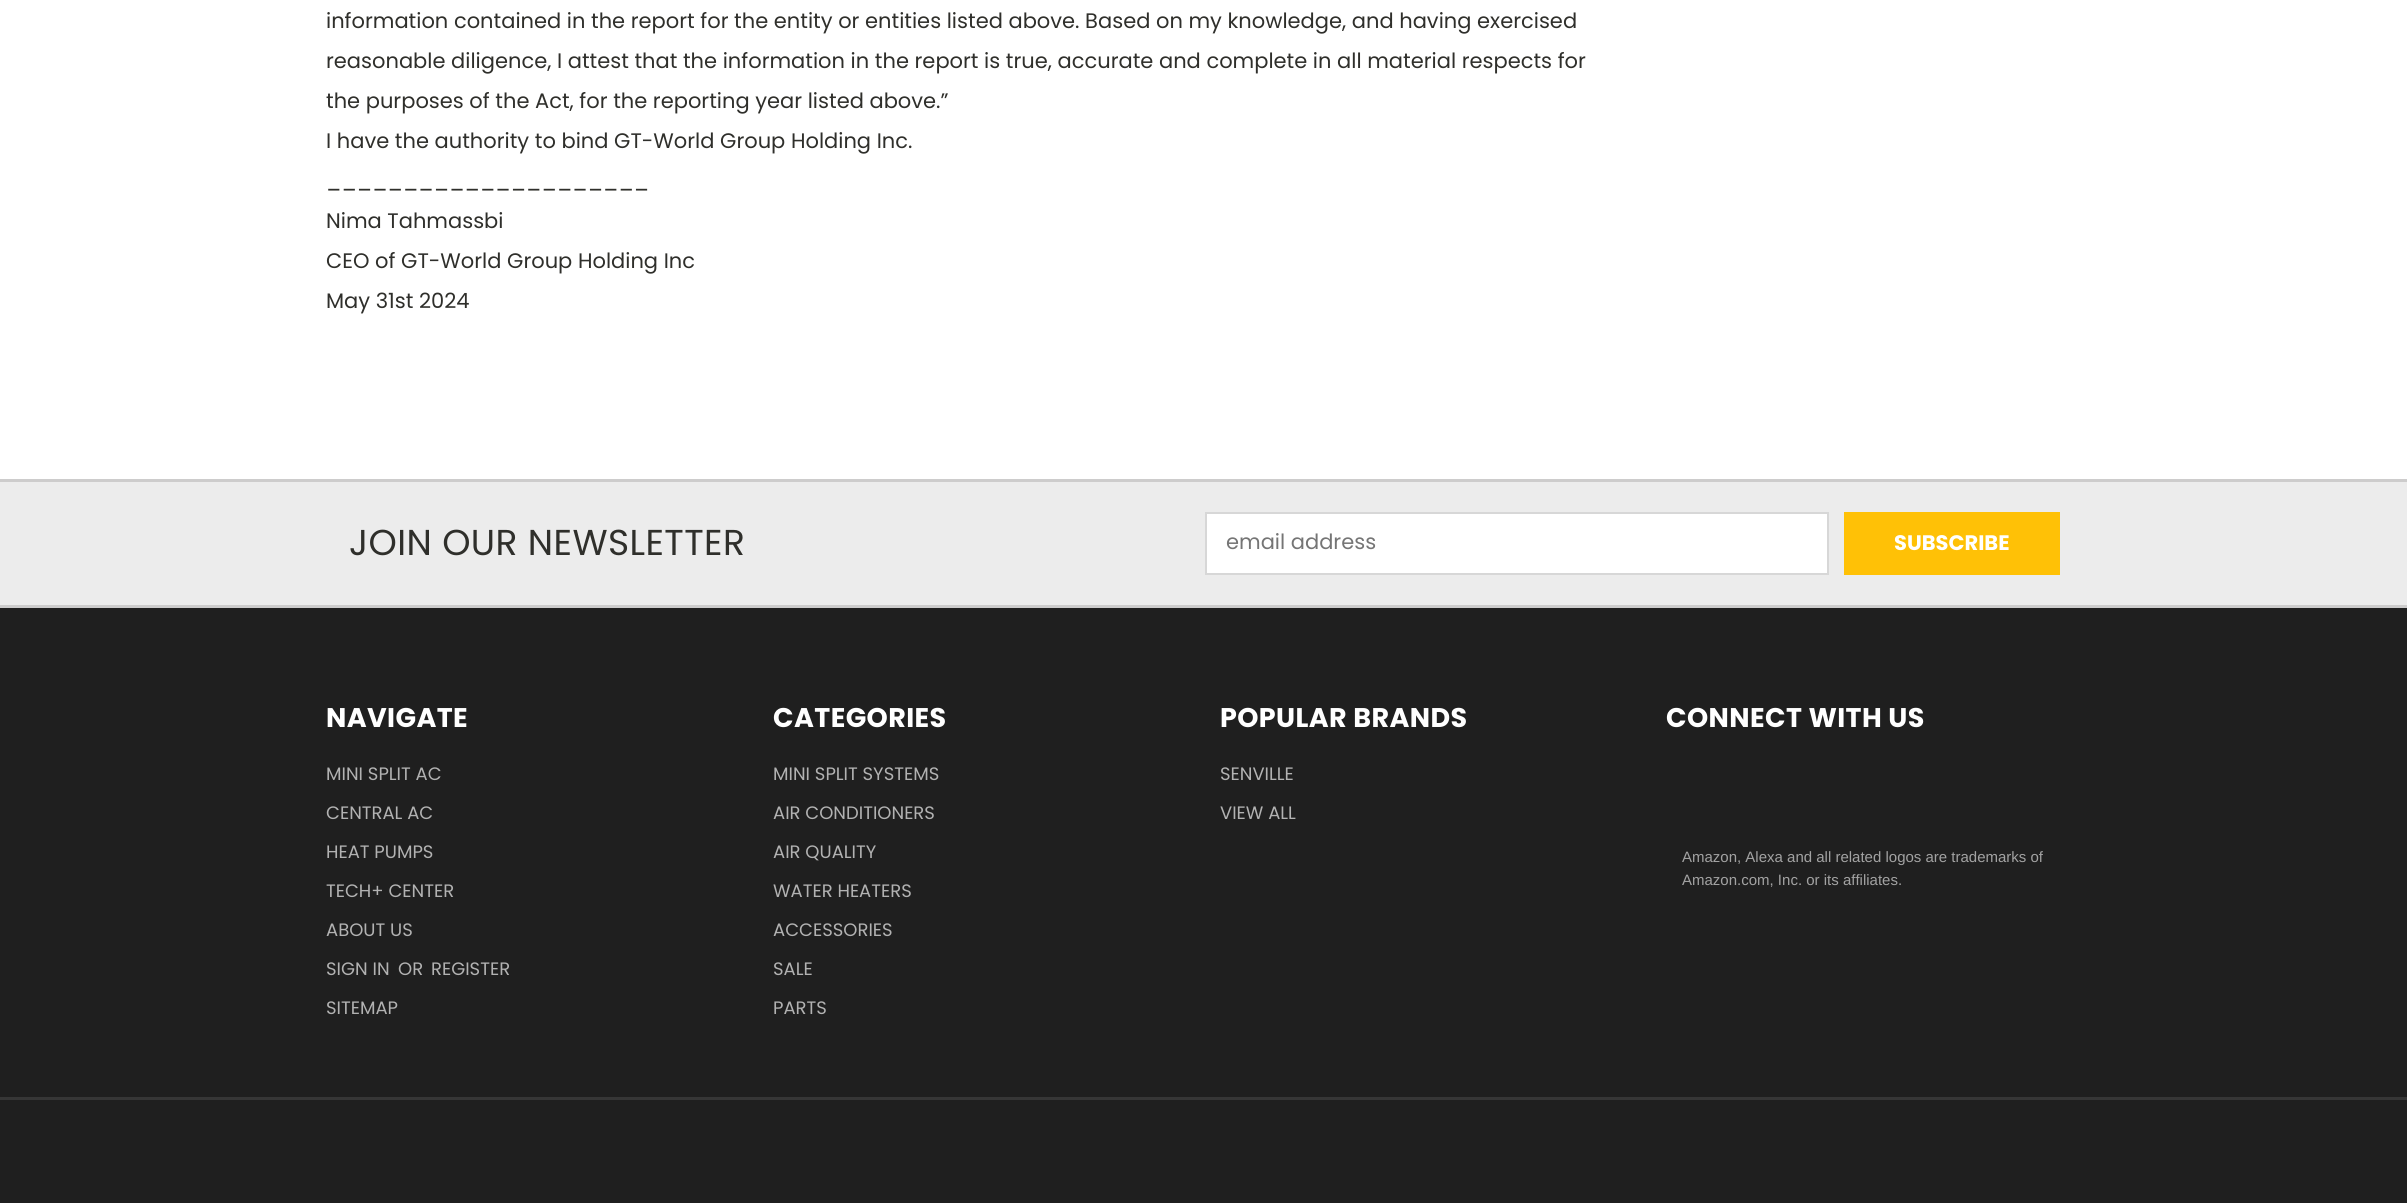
#include <cairo.h>
#include <math.h>
#include <stddef.h>


static void spaced_text(cairo_t *cr, double x, double y, const char *s, double letter, double word) {
    cairo_move_to(cr, x, y);
    while (*s) {
        char ch[5] = {0};
        int n = 0;
        do ch[n++] = *s++; while ((*s & 0xC0) == 0x80);
        cairo_show_text(cr, ch);
        cairo_rel_move_to(cr, letter + word * (*ch == ' '), 0);
    }
}

int main(void) {
    cairo_surface_t *surface = cairo_image_surface_create(CAIRO_FORMAT_RGB24, 2407, 1203);
    cairo_t *cr = cairo_create(surface);
    cairo_font_options_t *options = cairo_font_options_create();
    cairo_font_options_set_hint_metrics(options, CAIRO_HINT_METRICS_OFF);
    cairo_font_options_set_hint_style(options, CAIRO_HINT_STYLE_NONE);
    cairo_set_font_options(cr, options);
    cairo_set_miter_limit(cr, 4);
    cairo_set_source_rgb(cr, 1, 1, 1);
    cairo_paint(cr);
    cairo_select_font_face(cr, "Poppins", CAIRO_FONT_SLANT_NORMAL, CAIRO_FONT_WEIGHT_NORMAL);
    cairo_set_font_size(cr, 21);
    cairo_set_source_rgb(cr, 0.184, 0.184, 0.169);
    cairo_move_to(cr, 326, 28);
    cairo_show_text(cr, "information contained in the report for the entity or entities listed above. Based on my knowledge, and having exercised");
    cairo_move_to(cr, 326, 68);
    cairo_show_text(cr, "reasonable diligence, I attest that the information in the report is true, accurate and complete in all material respects for");
    cairo_move_to(cr, 326, 108);
    cairo_show_text(cr, "the purposes of the Act, for the reporting year listed above.”");
    cairo_move_to(cr, 326, 148);
    cairo_show_text(cr, "I have the authority to bind GT-World Group Holding Inc.");
    cairo_move_to(cr, 326, 188);
    cairo_show_text(cr, "_____________________");
    cairo_move_to(cr, 326, 228);
    cairo_show_text(cr, "Nima Tahmassbi");
    cairo_move_to(cr, 326, 268);
    cairo_show_text(cr, "CEO of GT-World Group Holding Inc");
    cairo_move_to(cr, 326, 308);
    cairo_show_text(cr, "May 31st 2024");
    cairo_set_source_rgb(cr, 0.922, 0.922, 0.922);
    cairo_rectangle(cr, 0, 482, 2407, 123);
    cairo_fill(cr);
    cairo_set_source_rgb(cr, 0.804, 0.8, 0.8);
    cairo_rectangle(cr, 0, 479, 2407, 3);
    cairo_fill(cr);
    cairo_set_font_size(cr, 36);
    cairo_set_source_rgb(cr, 0.184, 0.184, 0.169);
    spaced_text(cr, 349, 555, "JOIN OUR NEWSLETTER", 0.4, 0);
    cairo_set_source_rgb(cr, 1, 1, 1);
    cairo_rectangle(cr, 1206, 513, 622, 61);
    cairo_fill_preserve(cr);
    cairo_set_source_rgb(cr, 0.843, 0.843, 0.843);
    cairo_stroke(cr);
    cairo_set_font_size(cr, 21);
    cairo_set_source_rgb(cr, 0.459, 0.459, 0.459);
    cairo_move_to(cr, 1226, 549);
    cairo_show_text(cr, "email address");
    cairo_set_source_rgb(cr, 1, 0.757, 0.027);
    cairo_rectangle(cr, 1844, 512, 216, 63);
    cairo_fill(cr);
    cairo_select_font_face(cr, "Poppins", CAIRO_FONT_SLANT_NORMAL, CAIRO_FONT_WEIGHT_BOLD);
    cairo_set_source_rgb(cr, 1, 1, 1);
    cairo_move_to(cr, 1894, 550);
    cairo_show_text(cr, "SUBSCRIBE");
    cairo_set_source_rgb(cr, 0.122, 0.122, 0.122);
    cairo_rectangle(cr, 0, 608, 2407, 595);
    cairo_fill(cr);
    cairo_set_source_rgb(cr, 0.804, 0.8, 0.8);
    cairo_rectangle(cr, 0, 605, 2407, 3);
    cairo_fill(cr);
    cairo_set_font_size(cr, 27);
    cairo_set_source_rgb(cr, 1, 1, 1);
    spaced_text(cr, 326, 727, "NAVIGATE", 0.4, 0);
    cairo_select_font_face(cr, "Poppins", CAIRO_FONT_SLANT_NORMAL, CAIRO_FONT_WEIGHT_NORMAL);
    cairo_set_font_size(cr, 18);
    cairo_set_source_rgb(cr, 0.698, 0.698, 0.698);
    cairo_move_to(cr, 326, 780);
    cairo_show_text(cr, "MINI SPLIT AC");
    cairo_move_to(cr, 326, 819);
    cairo_show_text(cr, "CENTRAL AC");
    cairo_move_to(cr, 326, 858);
    cairo_show_text(cr, "HEAT PUMPS");
    cairo_move_to(cr, 326, 897);
    cairo_show_text(cr, "TECH+ CENTER");
    cairo_move_to(cr, 326, 936);
    cairo_show_text(cr, "ABOUT US");
    cairo_move_to(cr, 326, 975);
    cairo_show_text(cr, "SIGN IN");
    cairo_move_to(cr, 398, 975);
    cairo_show_text(cr, "OR");
    cairo_move_to(cr, 431, 975);
    cairo_show_text(cr, "REGISTER");
    cairo_move_to(cr, 326, 1014);
    cairo_show_text(cr, "SITEMAP");
    cairo_select_font_face(cr, "Poppins", CAIRO_FONT_SLANT_NORMAL, CAIRO_FONT_WEIGHT_BOLD);
    cairo_set_font_size(cr, 27);
    cairo_set_source_rgb(cr, 1, 1, 1);
    spaced_text(cr, 773, 727, "CATEGORIES", 0.4, 0);
    cairo_select_font_face(cr, "Poppins", CAIRO_FONT_SLANT_NORMAL, CAIRO_FONT_WEIGHT_NORMAL);
    cairo_set_font_size(cr, 18);
    cairo_set_source_rgb(cr, 0.698, 0.698, 0.698);
    cairo_move_to(cr, 773, 780);
    cairo_show_text(cr, "MINI SPLIT SYSTEMS");
    cairo_move_to(cr, 773, 819);
    cairo_show_text(cr, "AIR CONDITIONERS");
    cairo_move_to(cr, 773, 858);
    cairo_show_text(cr, "AIR QUALITY");
    cairo_move_to(cr, 773, 897);
    cairo_show_text(cr, "WATER HEATERS");
    cairo_move_to(cr, 773, 936);
    cairo_show_text(cr, "ACCESSORIES");
    cairo_move_to(cr, 773, 975);
    cairo_show_text(cr, "SALE");
    cairo_move_to(cr, 773, 1014);
    cairo_show_text(cr, "PARTS");
    cairo_select_font_face(cr, "Poppins", CAIRO_FONT_SLANT_NORMAL, CAIRO_FONT_WEIGHT_BOLD);
    cairo_set_font_size(cr, 27);
    cairo_set_source_rgb(cr, 1, 1, 1);
    spaced_text(cr, 1220, 727, "POPULAR BRANDS", 0.4, 0);
    cairo_select_font_face(cr, "Poppins", CAIRO_FONT_SLANT_NORMAL, CAIRO_FONT_WEIGHT_NORMAL);
    cairo_set_font_size(cr, 18);
    cairo_set_source_rgb(cr, 0.698, 0.698, 0.698);
    cairo_move_to(cr, 1220, 780);
    cairo_show_text(cr, "SENVILLE");
    cairo_move_to(cr, 1220, 819);
    cairo_show_text(cr, "VIEW ALL");
    cairo_select_font_face(cr, "Poppins", CAIRO_FONT_SLANT_NORMAL, CAIRO_FONT_WEIGHT_BOLD);
    cairo_set_font_size(cr, 27);
    cairo_set_source_rgb(cr, 1, 1, 1);
    spaced_text(cr, 1666, 727, "CONNECT WITH US", 0.4, 0);
    cairo_select_font_face(cr, "Liberation Sans", CAIRO_FONT_SLANT_NORMAL, CAIRO_FONT_WEIGHT_NORMAL);
    cairo_set_font_size(cr, 15);
    cairo_set_source_rgb(cr, 0.635, 0.635, 0.635);
    cairo_move_to(cr, 1682, 862);
    cairo_show_text(cr, "Amazon, Alexa and all related logos are trademarks of");
    cairo_move_to(cr, 1682, 885);
    cairo_show_text(cr, "Amazon.com, Inc. or its affiliates.");
    cairo_set_source_rgb(cr, 0.212, 0.212, 0.212);
    cairo_rectangle(cr, 0, 1097, 2407, 3);
    cairo_fill(cr);
    cairo_surface_write_to_png(surface, "page.png");
    cairo_font_options_destroy(options);
    cairo_destroy(cr);
    cairo_surface_destroy(surface);
    return 0;
}
